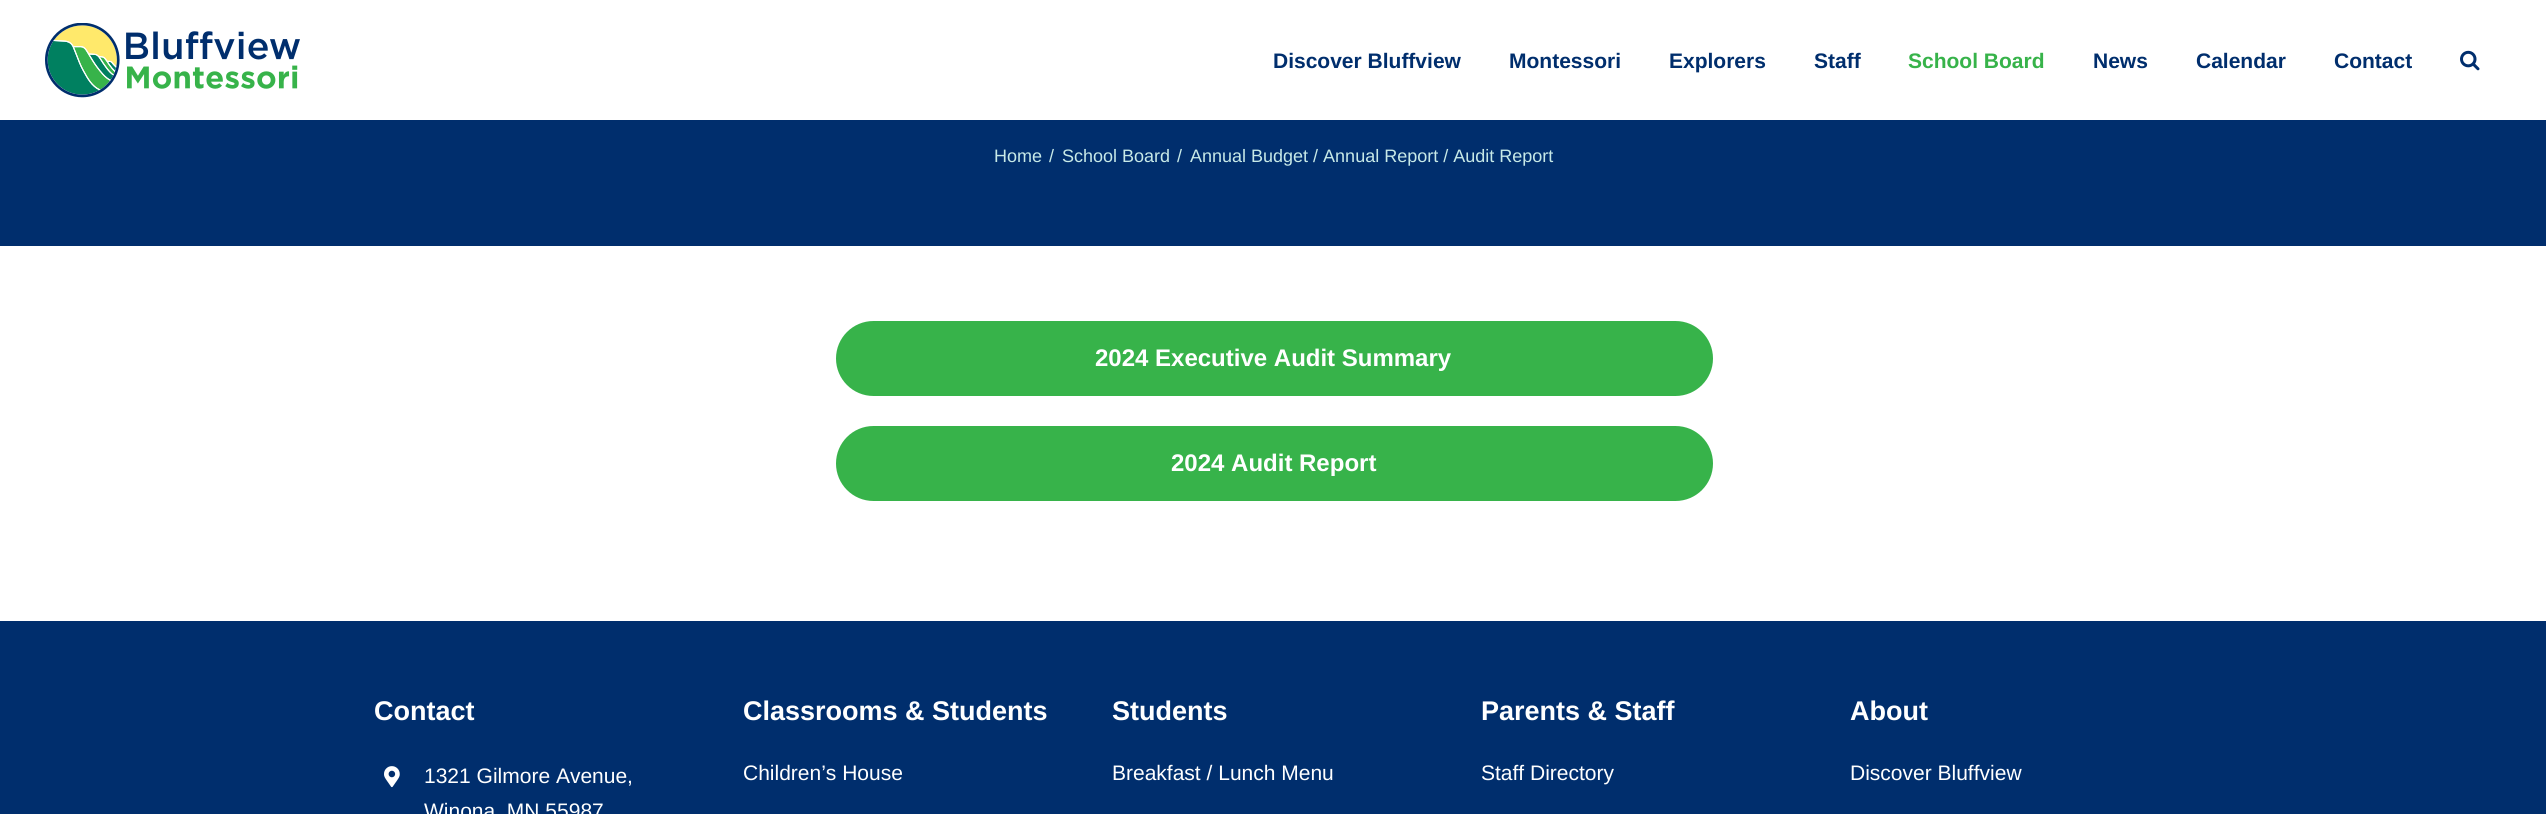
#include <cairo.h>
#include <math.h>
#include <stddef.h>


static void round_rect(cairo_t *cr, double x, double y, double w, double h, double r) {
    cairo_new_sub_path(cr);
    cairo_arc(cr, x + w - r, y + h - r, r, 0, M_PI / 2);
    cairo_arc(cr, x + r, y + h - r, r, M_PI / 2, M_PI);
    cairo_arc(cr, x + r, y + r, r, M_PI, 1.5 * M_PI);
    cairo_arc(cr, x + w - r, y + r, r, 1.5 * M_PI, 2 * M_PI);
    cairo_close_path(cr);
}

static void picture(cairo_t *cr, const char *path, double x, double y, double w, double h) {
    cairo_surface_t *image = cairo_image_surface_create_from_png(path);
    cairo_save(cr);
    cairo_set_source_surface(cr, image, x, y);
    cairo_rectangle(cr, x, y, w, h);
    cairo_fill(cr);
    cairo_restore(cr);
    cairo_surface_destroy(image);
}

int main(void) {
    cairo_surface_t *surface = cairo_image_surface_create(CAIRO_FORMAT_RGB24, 2546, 814);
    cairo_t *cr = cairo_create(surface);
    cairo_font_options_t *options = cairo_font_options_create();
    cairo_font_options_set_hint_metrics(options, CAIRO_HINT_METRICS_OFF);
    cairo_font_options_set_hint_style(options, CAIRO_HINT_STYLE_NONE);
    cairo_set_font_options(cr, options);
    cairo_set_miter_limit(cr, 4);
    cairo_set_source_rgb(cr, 1, 1, 1);
    cairo_paint(cr);
    picture(cr, "img1.png", 45, 23, 255, 75);
    cairo_select_font_face(cr, "Arimo", CAIRO_FONT_SLANT_NORMAL, CAIRO_FONT_WEIGHT_BOLD);
    cairo_set_font_size(cr, 21);
    cairo_set_source_rgb(cr, 0, 0.18, 0.427);
    cairo_move_to(cr, 1273, 68);
    cairo_show_text(cr, "Discover Bluffview");
    cairo_move_to(cr, 1509, 68);
    cairo_show_text(cr, "Montessori");
    cairo_move_to(cr, 1669, 68);
    cairo_show_text(cr, "Explorers");
    cairo_move_to(cr, 1814, 68);
    cairo_show_text(cr, "Staff");
    cairo_set_source_rgb(cr, 0.216, 0.702, 0.29);
    cairo_move_to(cr, 1908, 68);
    cairo_show_text(cr, "School Board");
    cairo_set_source_rgb(cr, 0, 0.18, 0.427);
    cairo_move_to(cr, 2093, 68);
    cairo_show_text(cr, "News");
    cairo_move_to(cr, 2196, 68);
    cairo_show_text(cr, "Calendar");
    cairo_move_to(cr, 2334, 68);
    cairo_show_text(cr, "Contact");
    picture(cr, "img2.png", 2460, 50, 20, 21);
    cairo_rectangle(cr, 0, 120, 2546, 126);
    cairo_fill(cr);
    cairo_select_font_face(cr, "Arimo", CAIRO_FONT_SLANT_NORMAL, CAIRO_FONT_WEIGHT_NORMAL);
    cairo_set_font_size(cr, 18);
    cairo_set_source_rgb(cr, 0.78, 0.914, 0.906);
    cairo_move_to(cr, 994, 162);
    cairo_show_text(cr, "Home");
    cairo_move_to(cr, 1049, 162);
    cairo_show_text(cr, "/");
    cairo_move_to(cr, 1062, 162);
    cairo_show_text(cr, "School Board");
    cairo_move_to(cr, 1177, 162);
    cairo_show_text(cr, "/");
    cairo_move_to(cr, 1190, 162);
    cairo_show_text(cr, "Annual Budget / Annual Report / Audit Report");
    cairo_set_source_rgb(cr, 0.216, 0.702, 0.29);
    round_rect(cr, 836, 321, 877, 75, 37.5);
    cairo_fill(cr);
    cairo_select_font_face(cr, "Arimo", CAIRO_FONT_SLANT_NORMAL, CAIRO_FONT_WEIGHT_BOLD);
    cairo_set_font_size(cr, 24);
    cairo_set_source_rgb(cr, 1, 1, 1);
    cairo_move_to(cr, 1095, 366);
    cairo_show_text(cr, "2024 Executive Audit Summary");
    cairo_set_source_rgb(cr, 0.216, 0.702, 0.29);
    round_rect(cr, 836, 426, 877, 75, 37.5);
    cairo_fill(cr);
    cairo_set_source_rgb(cr, 1, 1, 1);
    cairo_move_to(cr, 1171, 471);
    cairo_show_text(cr, "2024 Audit Report");
    cairo_set_source_rgb(cr, 0, 0.18, 0.427);
    cairo_rectangle(cr, 0, 621, 2546, 193);
    cairo_fill(cr);
    cairo_set_font_size(cr, 27);
    cairo_set_source_rgb(cr, 1, 1, 1);
    cairo_move_to(cr, 374, 720);
    cairo_show_text(cr, "Contact");
    picture(cr, "img3.png", 384, 766, 16, 22);
    cairo_select_font_face(cr, "Arimo", CAIRO_FONT_SLANT_NORMAL, CAIRO_FONT_WEIGHT_NORMAL);
    cairo_set_font_size(cr, 21);
    cairo_move_to(cr, 424, 783);
    cairo_show_text(cr, "1321 Gilmore Avenue,");
    cairo_move_to(cr, 424, 818);
    cairo_show_text(cr, "Winona, MN 55987");
    cairo_select_font_face(cr, "Arimo", CAIRO_FONT_SLANT_NORMAL, CAIRO_FONT_WEIGHT_BOLD);
    cairo_set_font_size(cr, 27);
    cairo_move_to(cr, 743, 720);
    cairo_show_text(cr, "Classrooms & Students");
    cairo_select_font_face(cr, "Arimo", CAIRO_FONT_SLANT_NORMAL, CAIRO_FONT_WEIGHT_NORMAL);
    cairo_set_font_size(cr, 21);
    cairo_move_to(cr, 743, 780);
    cairo_show_text(cr, "Children’s House");
    cairo_select_font_face(cr, "Arimo", CAIRO_FONT_SLANT_NORMAL, CAIRO_FONT_WEIGHT_BOLD);
    cairo_set_font_size(cr, 27);
    cairo_move_to(cr, 1112, 720);
    cairo_show_text(cr, "Students");
    cairo_select_font_face(cr, "Arimo", CAIRO_FONT_SLANT_NORMAL, CAIRO_FONT_WEIGHT_NORMAL);
    cairo_set_font_size(cr, 21);
    cairo_move_to(cr, 1112, 780);
    cairo_show_text(cr, "Breakfast / Lunch Menu");
    cairo_select_font_face(cr, "Arimo", CAIRO_FONT_SLANT_NORMAL, CAIRO_FONT_WEIGHT_BOLD);
    cairo_set_font_size(cr, 27);
    cairo_move_to(cr, 1481, 720);
    cairo_show_text(cr, "Parents & Staff");
    cairo_select_font_face(cr, "Arimo", CAIRO_FONT_SLANT_NORMAL, CAIRO_FONT_WEIGHT_NORMAL);
    cairo_set_font_size(cr, 21);
    cairo_move_to(cr, 1481, 780);
    cairo_show_text(cr, "Staff Directory");
    cairo_select_font_face(cr, "Arimo", CAIRO_FONT_SLANT_NORMAL, CAIRO_FONT_WEIGHT_BOLD);
    cairo_set_font_size(cr, 27);
    cairo_move_to(cr, 1850, 720);
    cairo_show_text(cr, "About");
    cairo_select_font_face(cr, "Arimo", CAIRO_FONT_SLANT_NORMAL, CAIRO_FONT_WEIGHT_NORMAL);
    cairo_set_font_size(cr, 21);
    cairo_move_to(cr, 1850, 780);
    cairo_show_text(cr, "Discover Bluffview");
    cairo_surface_write_to_png(surface, "page.png");
    cairo_font_options_destroy(options);
    cairo_destroy(cr);
    cairo_surface_destroy(surface);
    return 0;
}
